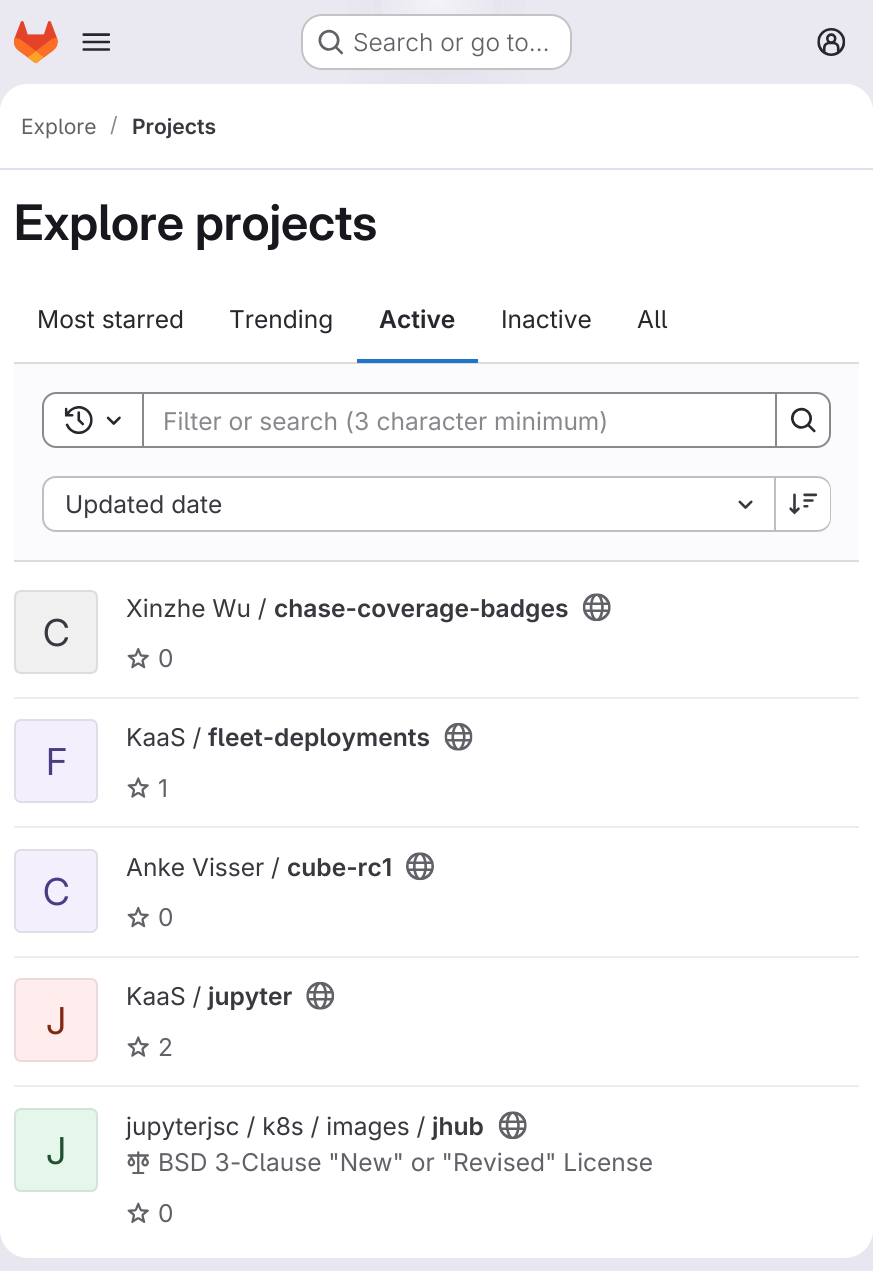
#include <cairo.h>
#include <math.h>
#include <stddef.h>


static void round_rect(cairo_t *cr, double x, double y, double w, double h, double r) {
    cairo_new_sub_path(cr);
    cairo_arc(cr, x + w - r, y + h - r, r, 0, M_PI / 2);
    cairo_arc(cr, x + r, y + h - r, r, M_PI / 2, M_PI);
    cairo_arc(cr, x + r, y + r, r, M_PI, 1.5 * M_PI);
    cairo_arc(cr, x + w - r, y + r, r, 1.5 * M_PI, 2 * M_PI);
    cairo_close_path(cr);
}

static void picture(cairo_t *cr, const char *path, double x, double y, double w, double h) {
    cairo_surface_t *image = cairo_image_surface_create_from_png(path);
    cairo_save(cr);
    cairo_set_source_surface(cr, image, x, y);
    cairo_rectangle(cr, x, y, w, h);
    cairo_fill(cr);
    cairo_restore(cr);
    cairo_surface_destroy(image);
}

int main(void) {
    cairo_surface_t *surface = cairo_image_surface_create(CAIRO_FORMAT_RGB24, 873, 1271);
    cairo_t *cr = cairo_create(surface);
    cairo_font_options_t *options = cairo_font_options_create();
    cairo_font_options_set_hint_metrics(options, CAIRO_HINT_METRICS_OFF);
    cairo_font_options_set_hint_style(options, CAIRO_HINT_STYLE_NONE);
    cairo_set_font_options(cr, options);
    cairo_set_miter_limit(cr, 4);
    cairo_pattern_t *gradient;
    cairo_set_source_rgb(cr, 1, 1, 1);
    cairo_paint(cr);
    gradient = cairo_pattern_create_linear(559, 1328, 315, -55);
    cairo_pattern_add_color_stop_rgba(gradient, 0, 0.91, 0.902, 0.941, 1);
    cairo_pattern_add_color_stop_rgba(gradient, 0.7, 0.918, 0.914, 0.949, 1);
    cairo_set_source(cr, gradient);
    cairo_pattern_destroy(gradient);
    cairo_rectangle(cr, 0, 0, 873, 1271);
    cairo_fill(cr);
    gradient = cairo_pattern_create_radial(0, 0, 0, 0, 0, 1);
    cairo_pattern_set_matrix(gradient, &(cairo_matrix_t){1.0 / 437, 0, 0, 1.0 / 1272, -1.0 * 437 / 437, -1.0 * 0 / 1272});
    cairo_pattern_add_color_stop_rgba(gradient, 0, 0.894, 0.886, 0.929, 1);
    cairo_pattern_add_color_stop_rgba(gradient, 0.28, 0.894, 0.886, 0.929, 0);
    cairo_set_source(cr, gradient);
    cairo_pattern_destroy(gradient);
    cairo_rectangle(cr, 348, 0, 178, 84);
    cairo_fill(cr);
    gradient = cairo_pattern_create_radial(0, 0, 0, 0, 0, 1);
    cairo_pattern_set_matrix(gradient, &(cairo_matrix_t){1.0 / 437, 0, 0, 1.0 / 1272, -1.0 * 437 / 437, -1.0 * 0 / 1272});
    cairo_pattern_add_color_stop_rgba(gradient, 0, 0.894, 0.886, 0.925, 1);
    cairo_pattern_add_color_stop_rgba(gradient, 0.2, 0.894, 0.886, 0.925, 0);
    cairo_set_source(cr, gradient);
    cairo_pattern_destroy(gradient);
    cairo_rectangle(cr, 401, 12, 72, 64);
    cairo_fill(cr);
    gradient = cairo_pattern_create_radial(437, 0, 0, 437, 0, 1345);
    cairo_pattern_add_color_stop_rgba(gradient, 0, 1, 1, 1, 0.6);
    cairo_pattern_add_color_stop_rgba(gradient, 0.05, 1, 1, 1, 0);
    cairo_set_source(cr, gradient);
    cairo_pattern_destroy(gradient);
    cairo_rectangle(cr, 381, 0, 112, 14);
    cairo_fill(cr);
    picture(cr, "img1.png", 14, 21, 44, 42);
    picture(cr, "img2.png", 82, 33, 29, 18);
    cairo_set_source_rgb(cr, 1, 1, 1);
    round_rect(cr, 301, 14, 271, 56, 21);
    cairo_fill(cr);
    round_rect(cr, 302, 15, 269, 54, 20);
    cairo_set_source_rgba(cr, 0.02, 0.02, 0.024, 0.24);
    cairo_stroke(cr);
    picture(cr, "img3.png", 318, 29, 25, 26);
    cairo_select_font_face(cr, "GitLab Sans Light", CAIRO_FONT_SLANT_NORMAL, CAIRO_FONT_WEIGHT_NORMAL);
    cairo_set_font_size(cr, 24.5);
    cairo_set_source_rgb(cr, 0.384, 0.38, 0.408);
    cairo_move_to(cr, 353, 51);
    cairo_show_text(cr, "Search or go to…");
    picture(cr, "img4.png", 817, 28, 29, 28);
    cairo_set_source_rgb(cr, 1, 1, 1);
    round_rect(cr, 0, 84, 873, 1174, 28);
    cairo_fill(cr);
    cairo_new_path(cr);
    cairo_move_to(cr, 28, 84);
    cairo_line_to(cr, 845, 84);
    cairo_curve_to(cr, 860.5, 84, 873, 96.5, 873, 112);
    cairo_line_to(cr, 873, 170);
    cairo_line_to(cr, 0, 170);
    cairo_line_to(cr, 0, 112);
    cairo_curve_to(cr, 0, 96.5, 12.5, 84, 28, 84);
    cairo_close_path(cr);
    cairo_fill(cr);
    cairo_set_source_rgb(cr, 0.882, 0.875, 0.925);
    cairo_rectangle(cr, 0, 168, 873, 2);
    cairo_fill(cr);
    cairo_select_font_face(cr, "GitLab Sans", CAIRO_FONT_SLANT_NORMAL, CAIRO_FONT_WEIGHT_NORMAL);
    cairo_set_font_size(cr, 21);
    cairo_set_source_rgb(cr, 0.384, 0.38, 0.408);
    cairo_move_to(cr, 21, 134);
    cairo_show_text(cr, "Explore");
    cairo_set_source_rgb(cr, 0.537, 0.533, 0.553);
    cairo_move_to(cr, 110, 132);
    cairo_show_text(cr, "/");
    cairo_select_font_face(cr, "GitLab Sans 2 SemiBold", CAIRO_FONT_SLANT_NORMAL, CAIRO_FONT_WEIGHT_NORMAL);
    cairo_set_source_rgb(cr, 0.227, 0.22, 0.247);
    cairo_move_to(cr, 132, 134);
    cairo_show_text(cr, "Projects");
    cairo_select_font_face(cr, "GitLab Sans SemiBold", CAIRO_FONT_SLANT_NORMAL, CAIRO_FONT_WEIGHT_NORMAL);
    cairo_set_font_size(cr, 49);
    cairo_set_source_rgb(cr, 0.094, 0.09, 0.114);
    cairo_move_to(cr, 14, 240);
    cairo_show_text(cr, "Explore projects");
    cairo_select_font_face(cr, "GitLab Sans", CAIRO_FONT_SLANT_NORMAL, CAIRO_FONT_WEIGHT_NORMAL);
    cairo_set_font_size(cr, 24.5);
    cairo_set_source_rgb(cr, 0.157, 0.153, 0.176);
    cairo_move_to(cr, 37, 328);
    cairo_show_text(cr, "Most starred");
    cairo_move_to(cr, 229, 328);
    cairo_show_text(cr, "Trending");
    cairo_select_font_face(cr, "GitLab Sans 2 SemiBold", CAIRO_FONT_SLANT_NORMAL, CAIRO_FONT_WEIGHT_NORMAL);
    cairo_move_to(cr, 379, 328);
    cairo_show_text(cr, "Active");
    cairo_set_source_rgb(cr, 0.863, 0.863, 0.871);
    cairo_rectangle(cr, 14, 362, 845, 2);
    cairo_fill(cr);
    cairo_set_source_rgb(cr, 0.122, 0.459, 0.796);
    cairo_rectangle(cr, 357, 359, 121, 4);
    cairo_fill(cr);
    cairo_select_font_face(cr, "GitLab Sans", CAIRO_FONT_SLANT_NORMAL, CAIRO_FONT_WEIGHT_NORMAL);
    cairo_set_source_rgb(cr, 0.157, 0.153, 0.176);
    cairo_move_to(cr, 501, 328);
    cairo_show_text(cr, "Inactive");
    cairo_move_to(cr, 637, 328);
    cairo_show_text(cr, "All");
    cairo_set_source_rgb(cr, 0.984, 0.98, 0.992);
    cairo_rectangle(cr, 14, 364, 845, 196);
    cairo_fill(cr);
    cairo_set_source_rgb(cr, 0.863, 0.863, 0.871);
    cairo_rectangle(cr, 14, 560, 845, 2);
    cairo_fill(cr);
    cairo_set_source_rgb(cr, 1, 1, 1);
    cairo_rectangle(cr, 143, 393, 633, 54);
    cairo_fill_preserve(cr);
    cairo_set_source_rgb(cr, 0.537, 0.533, 0.553);
    cairo_stroke(cr);
    cairo_set_source_rgb(cr, 1, 1, 1);
    cairo_new_path(cr);
    cairo_move_to(cr, 56, 393);
    cairo_line_to(cr, 143, 393);
    cairo_line_to(cr, 143, 447);
    cairo_line_to(cr, 56, 447);
    cairo_curve_to(cr, 49, 447, 43, 441, 43, 434);
    cairo_line_to(cr, 43, 406);
    cairo_curve_to(cr, 43, 399, 49, 393, 56, 393);
    cairo_close_path(cr);
    cairo_fill_preserve(cr);
    cairo_set_source_rgb(cr, 0.537, 0.533, 0.553);
    cairo_stroke(cr);
    picture(cr, "img5.png", 64, 406, 29, 28);
    picture(cr, "img6.png", 106, 416, 15, 9);
    cairo_move_to(cr, 163, 430);
    cairo_show_text(cr, "Filter or search (3 character minimum)");
    cairo_set_source_rgb(cr, 1, 1, 1);
    cairo_new_path(cr);
    cairo_move_to(cr, 776, 393);
    cairo_line_to(cr, 817, 393);
    cairo_curve_to(cr, 824, 393, 830, 399, 830, 406);
    cairo_line_to(cr, 830, 434);
    cairo_curve_to(cr, 830, 441, 824, 447, 817, 447);
    cairo_line_to(cr, 776, 447);
    cairo_close_path(cr);
    cairo_fill_preserve(cr);
    cairo_set_source_rgb(cr, 0.537, 0.533, 0.553);
    cairo_stroke(cr);
    picture(cr, "img7.png", 791, 407, 25, 26);
    cairo_set_source_rgb(cr, 1, 1, 1);
    cairo_new_path(cr);
    cairo_move_to(cr, 56, 478);
    cairo_line_to(cr, 774, 478);
    cairo_line_to(cr, 774, 530);
    cairo_line_to(cr, 56, 530);
    cairo_curve_to(cr, 49.5, 530, 44, 524.5, 44, 518);
    cairo_line_to(cr, 44, 490);
    cairo_curve_to(cr, 44, 483.5, 49.5, 478, 56, 478);
    cairo_close_path(cr);
    cairo_fill(cr);
    cairo_set_source_rgb(cr, 0.749, 0.749, 0.765);
    cairo_set_fill_rule(cr, CAIRO_FILL_RULE_EVEN_ODD);
    cairo_new_path(cr);
    cairo_move_to(cr, 56, 476);
    cairo_line_to(cr, 774, 476);
    cairo_line_to(cr, 774, 532);
    cairo_line_to(cr, 56, 532);
    cairo_curve_to(cr, 48, 532, 42, 526, 42, 518);
    cairo_line_to(cr, 42, 490);
    cairo_curve_to(cr, 42, 482, 48, 476, 56, 476);
    cairo_close_path(cr);
    cairo_move_to(cr, 56, 478);
    cairo_line_to(cr, 774, 478);
    cairo_line_to(cr, 774, 530);
    cairo_line_to(cr, 56, 530);
    cairo_curve_to(cr, 49, 530, 44, 525, 44, 518);
    cairo_line_to(cr, 44, 490);
    cairo_curve_to(cr, 44, 483, 49, 478, 56, 478);
    cairo_close_path(cr);
    cairo_fill(cr);
    cairo_set_source_rgb(cr, 0.227, 0.22, 0.247);
    cairo_move_to(cr, 65, 513);
    cairo_show_text(cr, "Updated date");
    picture(cr, "img8.png", 738, 500, 15, 9);
    cairo_set_source_rgb(cr, 1, 1, 1);
    cairo_new_path(cr);
    cairo_move_to(cr, 775, 478);
    cairo_line_to(cr, 818, 478);
    cairo_curve_to(cr, 824.5, 478, 830, 483.5, 830, 490);
    cairo_line_to(cr, 830, 518);
    cairo_curve_to(cr, 830, 524.5, 824.5, 530, 818, 530);
    cairo_line_to(cr, 775, 530);
    cairo_close_path(cr);
    cairo_fill(cr);
    cairo_set_source_rgb(cr, 0.749, 0.749, 0.765);
    cairo_new_path(cr);
    cairo_move_to(cr, 775, 476);
    cairo_line_to(cr, 817, 476);
    cairo_curve_to(cr, 825, 476, 831, 482, 831, 490);
    cairo_line_to(cr, 831, 518);
    cairo_curve_to(cr, 831, 526, 825, 532, 817, 532);
    cairo_line_to(cr, 775, 532);
    cairo_close_path(cr);
    cairo_move_to(cr, 775, 478);
    cairo_line_to(cr, 817, 478);
    cairo_curve_to(cr, 824, 478, 830, 483, 830, 490);
    cairo_line_to(cr, 830, 518);
    cairo_curve_to(cr, 830, 525, 824, 530, 817, 530);
    cairo_line_to(cr, 775, 530);
    cairo_close_path(cr);
    cairo_fill(cr);
    cairo_rectangle(cr, 774, 476, 2, 56);
    cairo_fill(cr);
    picture(cr, "img9.png", 789, 493, 29, 22);
    cairo_set_source_rgb(cr, 0.925, 0.925, 0.937);
    cairo_rectangle(cr, 14, 697, 845, 2);
    cairo_fill(cr);
    cairo_set_source_rgb(cr, 0.941, 0.941, 0.945);
    round_rect(cr, 14, 590, 84, 84, 7);
    cairo_fill(cr);
    round_rect(cr, 15, 591, 82, 82, 6);
    cairo_set_source_rgba(cr, 0.02, 0.02, 0.024, 0.08);
    cairo_stroke(cr);
    cairo_select_font_face(cr, "GitLab Sans 2", CAIRO_FONT_SLANT_NORMAL, CAIRO_FONT_WEIGHT_NORMAL);
    cairo_set_font_size(cr, 37);
    cairo_set_source_rgb(cr, 0.227, 0.22, 0.247);
    cairo_move_to(cr, 43, 646);
    cairo_show_text(cr, "C");
    cairo_select_font_face(cr, "GitLab Sans", CAIRO_FONT_SLANT_NORMAL, CAIRO_FONT_WEIGHT_NORMAL);
    cairo_set_font_size(cr, 24.5);
    cairo_move_to(cr, 126, 617);
    cairo_show_text(cr, "Xinzhe Wu /");
    cairo_select_font_face(cr, "GitLab Sans 2 SemiBold", CAIRO_FONT_SLANT_NORMAL, CAIRO_FONT_WEIGHT_NORMAL);
    cairo_move_to(cr, 274, 617);
    cairo_show_text(cr, "chase-coverage-badges");
    picture(cr, "img10.png", 582, 593, 29, 29);
    picture(cr, "img11.png", 127, 647, 22, 22);
    cairo_select_font_face(cr, "GitLab Sans", CAIRO_FONT_SLANT_NORMAL, CAIRO_FONT_WEIGHT_NORMAL);
    cairo_set_source_rgb(cr, 0.384, 0.38, 0.408);
    cairo_move_to(cr, 158, 667);
    cairo_show_text(cr, "0");
    cairo_set_source_rgb(cr, 0.925, 0.925, 0.937);
    cairo_rectangle(cr, 14, 826, 845, 2);
    cairo_fill(cr);
    cairo_set_source_rgb(cr, 0.953, 0.937, 0.988);
    round_rect(cr, 14, 719, 84, 84, 7);
    cairo_fill(cr);
    round_rect(cr, 15, 720, 82, 82, 6);
    cairo_set_source_rgba(cr, 0.02, 0.02, 0.024, 0.08);
    cairo_stroke(cr);
    cairo_select_font_face(cr, "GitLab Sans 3", CAIRO_FONT_SLANT_NORMAL, CAIRO_FONT_WEIGHT_NORMAL);
    cairo_set_font_size(cr, 37);
    cairo_set_source_rgb(cr, 0.286, 0.235, 0.514);
    cairo_move_to(cr, 46, 775);
    cairo_show_text(cr, "F");
    cairo_select_font_face(cr, "GitLab Sans", CAIRO_FONT_SLANT_NORMAL, CAIRO_FONT_WEIGHT_NORMAL);
    cairo_set_font_size(cr, 24.5);
    cairo_set_source_rgb(cr, 0.227, 0.22, 0.247);
    cairo_move_to(cr, 126, 746);
    cairo_show_text(cr, "KaaS /");
    cairo_select_font_face(cr, "GitLab Sans 2 SemiBold", CAIRO_FONT_SLANT_NORMAL, CAIRO_FONT_WEIGHT_NORMAL);
    cairo_move_to(cr, 208, 746);
    cairo_show_text(cr, "fleet-deployments");
    picture(cr, "img12.png", 444, 722, 29, 29);
    picture(cr, "img13.png", 127, 777, 22, 21);
    cairo_select_font_face(cr, "GitLab Sans", CAIRO_FONT_SLANT_NORMAL, CAIRO_FONT_WEIGHT_NORMAL);
    cairo_set_source_rgb(cr, 0.384, 0.38, 0.408);
    cairo_move_to(cr, 158, 797);
    cairo_show_text(cr, "1");
    cairo_set_source_rgb(cr, 0.925, 0.925, 0.937);
    cairo_rectangle(cr, 14, 956, 845, 2);
    cairo_fill(cr);
    cairo_set_source_rgb(cr, 0.953, 0.937, 0.988);
    round_rect(cr, 14, 849, 84, 84, 7);
    cairo_fill(cr);
    round_rect(cr, 15, 850, 82, 82, 6);
    cairo_set_source_rgba(cr, 0.02, 0.02, 0.024, 0.08);
    cairo_stroke(cr);
    cairo_select_font_face(cr, "GitLab Sans 2", CAIRO_FONT_SLANT_NORMAL, CAIRO_FONT_WEIGHT_NORMAL);
    cairo_set_font_size(cr, 37);
    cairo_set_source_rgb(cr, 0.286, 0.235, 0.514);
    cairo_move_to(cr, 43, 905);
    cairo_show_text(cr, "C");
    cairo_select_font_face(cr, "GitLab Sans", CAIRO_FONT_SLANT_NORMAL, CAIRO_FONT_WEIGHT_NORMAL);
    cairo_set_font_size(cr, 24.5);
    cairo_set_source_rgb(cr, 0.227, 0.22, 0.247);
    cairo_move_to(cr, 126, 876);
    cairo_show_text(cr, "Anke Visser /");
    cairo_select_font_face(cr, "GitLab Sans 2 SemiBold", CAIRO_FONT_SLANT_NORMAL, CAIRO_FONT_WEIGHT_NORMAL);
    cairo_move_to(cr, 287, 876);
    cairo_show_text(cr, "cube-rc1");
    picture(cr, "img14.png", 406, 852, 28, 29);
    picture(cr, "img11.png", 127, 906, 22, 22);
    cairo_select_font_face(cr, "GitLab Sans", CAIRO_FONT_SLANT_NORMAL, CAIRO_FONT_WEIGHT_NORMAL);
    cairo_set_source_rgb(cr, 0.384, 0.38, 0.408);
    cairo_move_to(cr, 158, 926);
    cairo_show_text(cr, "0");
    cairo_set_source_rgb(cr, 0.925, 0.925, 0.937);
    cairo_rectangle(cr, 14, 1085, 845, 2);
    cairo_fill(cr);
    cairo_set_source_rgb(cr, 0.996, 0.929, 0.922);
    round_rect(cr, 14, 978, 84, 84, 7);
    cairo_fill(cr);
    round_rect(cr, 15, 979, 82, 82, 6);
    cairo_set_source_rgba(cr, 0.02, 0.02, 0.024, 0.08);
    cairo_stroke(cr);
    cairo_select_font_face(cr, "GitLab Sans 3", CAIRO_FONT_SLANT_NORMAL, CAIRO_FONT_WEIGHT_NORMAL);
    cairo_set_font_size(cr, 37);
    cairo_set_source_rgb(cr, 0.506, 0.153, 0.075);
    cairo_move_to(cr, 46, 1034);
    cairo_show_text(cr, "J");
    cairo_select_font_face(cr, "GitLab Sans", CAIRO_FONT_SLANT_NORMAL, CAIRO_FONT_WEIGHT_NORMAL);
    cairo_set_font_size(cr, 24.5);
    cairo_set_source_rgb(cr, 0.227, 0.22, 0.247);
    cairo_move_to(cr, 126, 1005);
    cairo_show_text(cr, "KaaS /");
    cairo_select_font_face(cr, "GitLab Sans 2 SemiBold", CAIRO_FONT_SLANT_NORMAL, CAIRO_FONT_WEIGHT_NORMAL);
    cairo_move_to(cr, 208, 1005);
    cairo_show_text(cr, "jupyter");
    picture(cr, "img15.png", 306, 981, 29, 29);
    picture(cr, "img13.png", 127, 1036, 22, 21);
    cairo_select_font_face(cr, "GitLab Sans", CAIRO_FONT_SLANT_NORMAL, CAIRO_FONT_WEIGHT_NORMAL);
    cairo_set_source_rgb(cr, 0.384, 0.38, 0.408);
    cairo_move_to(cr, 158, 1056);
    cairo_show_text(cr, "2");
    cairo_set_source_rgb(cr, 0.898, 0.961, 0.918);
    round_rect(cr, 14, 1108, 84, 84, 7);
    cairo_fill(cr);
    round_rect(cr, 15, 1109, 82, 82, 6);
    cairo_set_source_rgba(cr, 0.02, 0.02, 0.024, 0.08);
    cairo_stroke(cr);
    cairo_select_font_face(cr, "GitLab Sans 3", CAIRO_FONT_SLANT_NORMAL, CAIRO_FONT_WEIGHT_NORMAL);
    cairo_set_font_size(cr, 37);
    cairo_set_source_rgb(cr, 0.133, 0.318, 0.192);
    cairo_move_to(cr, 46, 1164);
    cairo_show_text(cr, "J");
    cairo_select_font_face(cr, "GitLab Sans", CAIRO_FONT_SLANT_NORMAL, CAIRO_FONT_WEIGHT_NORMAL);
    cairo_set_font_size(cr, 24.5);
    cairo_set_source_rgb(cr, 0.227, 0.22, 0.247);
    cairo_move_to(cr, 126, 1135);
    cairo_show_text(cr, "jupyterjsc / k8s / images /");
    cairo_select_font_face(cr, "GitLab Sans 2 SemiBold", CAIRO_FONT_SLANT_NORMAL, CAIRO_FONT_WEIGHT_NORMAL);
    cairo_move_to(cr, 432, 1135);
    cairo_show_text(cr, "jhub");
    picture(cr, "img16.png", 498, 1111, 29, 29);
    picture(cr, "img17.png", 127, 1151, 22, 23);
    cairo_select_font_face(cr, "GitLab Sans", CAIRO_FONT_SLANT_NORMAL, CAIRO_FONT_WEIGHT_NORMAL);
    cairo_set_source_rgb(cr, 0.384, 0.38, 0.408);
    cairo_move_to(cr, 158, 1171);
    cairo_show_text(cr, "BSD 3-Clause \"New\" or \"Revised\" License");
    picture(cr, "img18.png", 127, 1202, 22, 21);
    cairo_move_to(cr, 158, 1222);
    cairo_show_text(cr, "0");
    cairo_surface_write_to_png(surface, "page.png");
    cairo_font_options_destroy(options);
    cairo_destroy(cr);
    cairo_surface_destroy(surface);
    return 0;
}
